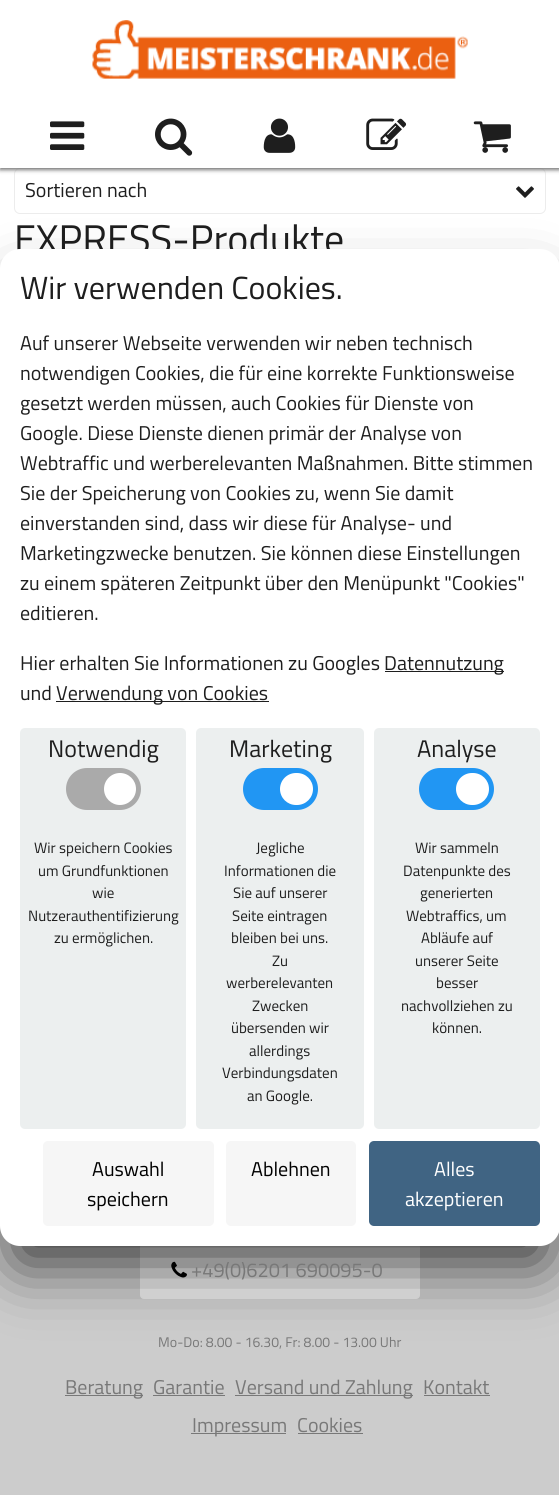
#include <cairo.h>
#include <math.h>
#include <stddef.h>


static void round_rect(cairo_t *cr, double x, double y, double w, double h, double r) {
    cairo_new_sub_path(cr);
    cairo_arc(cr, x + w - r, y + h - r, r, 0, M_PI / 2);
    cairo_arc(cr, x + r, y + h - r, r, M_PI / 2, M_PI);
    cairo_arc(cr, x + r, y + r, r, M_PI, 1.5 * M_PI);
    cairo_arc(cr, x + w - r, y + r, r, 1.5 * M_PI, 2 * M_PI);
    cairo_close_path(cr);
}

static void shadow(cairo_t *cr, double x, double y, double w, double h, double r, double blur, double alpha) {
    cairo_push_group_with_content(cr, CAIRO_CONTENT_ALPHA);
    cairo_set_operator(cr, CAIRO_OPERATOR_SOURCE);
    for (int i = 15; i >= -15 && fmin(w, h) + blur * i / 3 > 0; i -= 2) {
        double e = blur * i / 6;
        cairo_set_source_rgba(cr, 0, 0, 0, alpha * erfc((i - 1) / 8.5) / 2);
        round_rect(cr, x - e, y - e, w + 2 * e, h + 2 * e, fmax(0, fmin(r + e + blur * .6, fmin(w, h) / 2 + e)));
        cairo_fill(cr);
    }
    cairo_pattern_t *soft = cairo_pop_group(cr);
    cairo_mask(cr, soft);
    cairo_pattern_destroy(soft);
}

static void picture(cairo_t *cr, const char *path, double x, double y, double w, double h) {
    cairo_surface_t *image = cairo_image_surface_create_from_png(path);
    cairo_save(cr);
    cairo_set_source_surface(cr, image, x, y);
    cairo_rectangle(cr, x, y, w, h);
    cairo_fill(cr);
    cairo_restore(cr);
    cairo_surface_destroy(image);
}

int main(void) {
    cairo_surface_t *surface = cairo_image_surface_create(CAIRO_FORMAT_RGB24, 559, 1495);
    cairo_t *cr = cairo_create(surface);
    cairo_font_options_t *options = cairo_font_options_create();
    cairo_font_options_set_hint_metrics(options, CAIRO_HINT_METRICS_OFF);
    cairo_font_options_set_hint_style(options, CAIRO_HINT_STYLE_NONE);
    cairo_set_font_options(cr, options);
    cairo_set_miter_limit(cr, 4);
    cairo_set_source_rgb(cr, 1, 1, 1);
    cairo_paint(cr);
    round_rect(cr, 14.5, 168.5, 531, 45, 5.5);
    cairo_set_source_rgb(cr, 0.925, 0.925, 0.925);
    cairo_set_line_width(cr, 1);
    cairo_stroke(cr);
    cairo_set_source_rgb(cr, 0.471, 0.471, 0.471);
    shadow(cr, 0, 3, 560, 167, 0, 2, 1);
    cairo_set_source_rgb(cr, 1, 1, 1);
    cairo_rectangle(cr, 0, 0, 559, 168);
    cairo_fill(cr);
    picture(cr, "img1.png", 92, 20, 376, 59);
    picture(cr, "img2.png", 50, 121, 35, 29);
    picture(cr, "img3.png", 155, 118, 38, 38);
    picture(cr, "img4.png", 263, 118, 33, 35);
    picture(cr, "img5.png", 366, 118, 41, 32);
    picture(cr, "img6.png", 473, 121, 38, 32);
    cairo_select_font_face(cr, "Titillium Web", CAIRO_FONT_SLANT_NORMAL, CAIRO_FONT_WEIGHT_NORMAL);
    cairo_set_font_size(cr, 20);
    cairo_set_source_rgb(cr, 0.118, 0.118, 0.118);
    cairo_move_to(cr, 25, 197);
    cairo_show_text(cr, "Sortieren nach");
    picture(cr, "img7.png", 516, 186, 18, 12);
    cairo_set_font_size(cr, 40);
    cairo_move_to(cr, 14, 253);
    cairo_show_text(cr, "EXPRESS-Produkte");
    cairo_set_source_rgb(cr, 0.8, 0.8, 0.8);
    cairo_rectangle(cr, 0, 1226, 559, 269);
    cairo_fill(cr);
    cairo_set_source_rgb(cr, 0.925, 0.925, 0.925);
    round_rect(cr, 140.5, 1243.5, 279, 55, 3.5);
    cairo_fill_preserve(cr);
    cairo_stroke(cr);
    picture(cr, "img8.png", 171, 1261, 16, 17);
    cairo_set_source_rgb(cr, 0, 0, 0);
    shadow(cr, 15, 295, 530, 968, 5, 31, 0.75);
    cairo_set_source_rgb(cr, 1, 1, 1);
    round_rect(cr, 0, 249, 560, 997, 20);
    cairo_fill(cr);
    cairo_set_font_size(cr, 32);
    cairo_set_source_rgb(cr, 0.118, 0.118, 0.118);
    cairo_move_to(cr, 20, 299);
    cairo_show_text(cr, "Wir verwenden Cookies.");
    cairo_set_font_size(cr, 20);
    cairo_move_to(cr, 20, 350);
    cairo_show_text(cr, "Auf unserer Webseite verwenden wir neben technisch");
    cairo_move_to(cr, 20, 380);
    cairo_show_text(cr, "notwendigen Cookies, die für eine korrekte Funktionsweise");
    cairo_move_to(cr, 20, 410);
    cairo_show_text(cr, "gesetzt werden müssen, auch Cookies für Dienste von");
    cairo_move_to(cr, 20, 440);
    cairo_show_text(cr, "Google. Diese Dienste dienen primär der Analyse von");
    cairo_move_to(cr, 20, 470);
    cairo_show_text(cr, "Webtraffic und werberelevanten Maßnahmen. Bitte stimmen");
    cairo_move_to(cr, 20, 500);
    cairo_show_text(cr, "Sie der Speicherung von Cookies zu, wenn Sie damit");
    cairo_move_to(cr, 20, 530);
    cairo_show_text(cr, "einverstanden sind, dass wir diese für Analyse- und");
    cairo_move_to(cr, 20, 560);
    cairo_show_text(cr, "Marketingzwecke benutzen. Sie können diese Einstellungen");
    cairo_move_to(cr, 20, 590);
    cairo_show_text(cr, "zu einem späteren Zeitpunkt über den Menüpunkt \"Cookies\"");
    cairo_move_to(cr, 20, 620);
    cairo_show_text(cr, "editieren.");
    cairo_move_to(cr, 20, 670);
    cairo_show_text(cr, "Hier erhalten Sie Informationen zu Googles");
    cairo_rectangle(cr, 385, 671, 119, 1);
    cairo_fill(cr);
    cairo_move_to(cr, 384, 670);
    cairo_show_text(cr, "Datennutzung");
    cairo_move_to(cr, 20, 700);
    cairo_show_text(cr, "und");
    cairo_rectangle(cr, 56, 701, 213, 1);
    cairo_fill(cr);
    cairo_move_to(cr, 56, 700);
    cairo_show_text(cr, "Verwendung von Cookies");
    cairo_set_source_rgb(cr, 0.922, 0.937, 0.937);
    round_rect(cr, 20, 728, 166, 401, 5);
    cairo_fill(cr);
    cairo_set_font_size(cr, 24);
    cairo_set_source_rgb(cr, 0.118, 0.118, 0.118);
    cairo_move_to(cr, 48, 757);
    cairo_show_text(cr, "Notwendig");
    cairo_set_source_rgb(cr, 0.667, 0.667, 0.667);
    round_rect(cr, 66, 768, 75, 42, 21);
    cairo_fill(cr);
    cairo_set_source_rgb(cr, 1, 1, 1);
    cairo_arc(cr, 120, 789, 16, 0, 2 * M_PI);
    cairo_fill(cr);
    cairo_set_font_size(cr, 15);
    cairo_set_source_rgb(cr, 0.118, 0.118, 0.118);
    cairo_move_to(cr, 34, 853);
    cairo_show_text(cr, "Wir speichern Cookies");
    cairo_move_to(cr, 38, 876);
    cairo_show_text(cr, "um Grundfunktionen");
    cairo_move_to(cr, 92, 898);
    cairo_show_text(cr, "wie");
    cairo_move_to(cr, 28, 921);
    cairo_show_text(cr, "Nutzerauthentifizierung");
    cairo_move_to(cr, 54, 943);
    cairo_show_text(cr, "zu ermöglichen.");
    cairo_set_source_rgb(cr, 0.922, 0.937, 0.937);
    round_rect(cr, 196, 728, 168, 401, 5);
    cairo_fill(cr);
    cairo_set_font_size(cr, 24);
    cairo_set_source_rgb(cr, 0.118, 0.118, 0.118);
    cairo_move_to(cr, 229, 757);
    cairo_show_text(cr, "Marketing");
    cairo_set_source_rgb(cr, 0.129, 0.588, 0.953);
    round_rect(cr, 243, 768, 75, 42, 21);
    cairo_fill(cr);
    cairo_set_source_rgb(cr, 1, 1, 1);
    round_rect(cr, 280, 773, 33, 32, 16);
    cairo_fill(cr);
    cairo_set_font_size(cr, 15);
    cairo_set_source_rgb(cr, 0.118, 0.118, 0.118);
    cairo_move_to(cr, 256, 853);
    cairo_show_text(cr, "Jegliche");
    cairo_move_to(cr, 224, 876);
    cairo_show_text(cr, "Informationen die");
    cairo_move_to(cr, 233, 898);
    cairo_show_text(cr, "Sie auf unserer");
    cairo_move_to(cr, 232, 921);
    cairo_show_text(cr, "Seite eintragen");
    cairo_move_to(cr, 231, 943);
    cairo_show_text(cr, "bleiben bei uns.");
    cairo_move_to(cr, 272, 966);
    cairo_show_text(cr, "Zu");
    cairo_move_to(cr, 226, 988);
    cairo_show_text(cr, "werberelevanten");
    cairo_move_to(cr, 252, 1011);
    cairo_show_text(cr, "Zwecken");
    cairo_move_to(cr, 231, 1033);
    cairo_show_text(cr, "übersenden wir");
    cairo_move_to(cr, 249, 1056);
    cairo_show_text(cr, "allerdings");
    cairo_move_to(cr, 222, 1078);
    cairo_show_text(cr, "Verbindungsdaten");
    cairo_move_to(cr, 247, 1101);
    cairo_show_text(cr, "an Google.");
    cairo_set_source_rgb(cr, 0.922, 0.937, 0.937);
    round_rect(cr, 374, 728, 166, 401, 5);
    cairo_fill(cr);
    cairo_set_font_size(cr, 24);
    cairo_set_source_rgb(cr, 0.118, 0.118, 0.118);
    cairo_move_to(cr, 417, 757);
    cairo_show_text(cr, "Analyse");
    cairo_set_source_rgb(cr, 0.129, 0.588, 0.953);
    round_rect(cr, 419, 768, 75, 42, 21);
    cairo_fill(cr);
    cairo_set_source_rgb(cr, 1, 1, 1);
    round_rect(cr, 456, 773, 33, 32, 16);
    cairo_fill(cr);
    cairo_set_font_size(cr, 15);
    cairo_set_source_rgb(cr, 0.118, 0.118, 0.118);
    cairo_move_to(cr, 415, 853);
    cairo_show_text(cr, "Wir sammeln");
    cairo_move_to(cr, 403, 876);
    cairo_show_text(cr, "Datenpunkte des");
    cairo_move_to(cr, 420, 898);
    cairo_show_text(cr, "generierten");
    cairo_move_to(cr, 406, 921);
    cairo_show_text(cr, "Webtraffics, um");
    cairo_move_to(cr, 421, 943);
    cairo_show_text(cr, "Abläufe auf");
    cairo_move_to(cr, 415, 966);
    cairo_show_text(cr, "unserer Seite");
    cairo_move_to(cr, 436, 988);
    cairo_show_text(cr, "besser");
    cairo_move_to(cr, 401, 1011);
    cairo_show_text(cr, "nachvollziehen zu");
    cairo_move_to(cr, 432, 1033);
    cairo_show_text(cr, "können.");
    cairo_set_source_rgb(cr, 0.961, 0.961, 0.961);
    round_rect(cr, 43, 1141, 171, 85, 5);
    cairo_fill(cr);
    cairo_set_font_size(cr, 20);
    cairo_set_source_rgb(cr, 0, 0, 0);
    cairo_move_to(cr, 92, 1176);
    cairo_show_text(cr, "Auswahl");
    cairo_move_to(cr, 87, 1206);
    cairo_show_text(cr, "speichern");
    cairo_set_source_rgb(cr, 0.961, 0.961, 0.961);
    round_rect(cr, 226, 1141, 130, 85, 5);
    cairo_fill(cr);
    cairo_set_source_rgb(cr, 0, 0, 0);
    cairo_move_to(cr, 251, 1176);
    cairo_show_text(cr, "Ablehnen");
    cairo_set_source_rgb(cr, 0.251, 0.392, 0.514);
    round_rect(cr, 369, 1141, 171, 85, 5);
    cairo_fill(cr);
    cairo_set_source_rgb(cr, 1, 1, 1);
    cairo_move_to(cr, 434, 1176);
    cairo_show_text(cr, "Alles");
    cairo_move_to(cr, 405, 1206);
    cairo_show_text(cr, "akzeptieren");
    cairo_set_source_rgb(cr, 0.471, 0.471, 0.471);
    cairo_move_to(cr, 191, 1277);
    cairo_show_text(cr, "+49(0)6201 690095-0");
    cairo_set_font_size(cr, 14);
    cairo_move_to(cr, 158, 1347);
    cairo_show_text(cr, "Mo-Do: 8.00 - 16.30, Fr: 8.00 - 13.00 Uhr");
    cairo_rectangle(cr, 65, 1395, 78, 1);
    cairo_fill(cr);
    cairo_set_font_size(cr, 20);
    cairo_move_to(cr, 65, 1394);
    cairo_show_text(cr, "Beratung");
    cairo_move_to(cr, 153, 1394);
    cairo_show_text(cr, "Garantie");
    cairo_rectangle(cr, 153, 1395, 72, 1);
    cairo_fill(cr);
    cairo_rectangle(cr, 235, 1395, 178, 1);
    cairo_fill(cr);
    cairo_move_to(cr, 235, 1394);
    cairo_show_text(cr, "Versand und Zahlung");
    cairo_move_to(cr, 423, 1394);
    cairo_show_text(cr, "Kontakt");
    cairo_rectangle(cr, 424, 1395, 66, 1);
    cairo_fill(cr);
    cairo_rectangle(cr, 191, 1433, 95, 1);
    cairo_fill(cr);
    cairo_move_to(cr, 192, 1432);
    cairo_show_text(cr, "Impressum");
    cairo_move_to(cr, 297, 1432);
    cairo_show_text(cr, "Cookies");
    cairo_rectangle(cr, 298, 1433, 65, 1);
    cairo_fill(cr);
    cairo_surface_write_to_png(surface, "page.png");
    cairo_font_options_destroy(options);
    cairo_destroy(cr);
    cairo_surface_destroy(surface);
    return 0;
}
